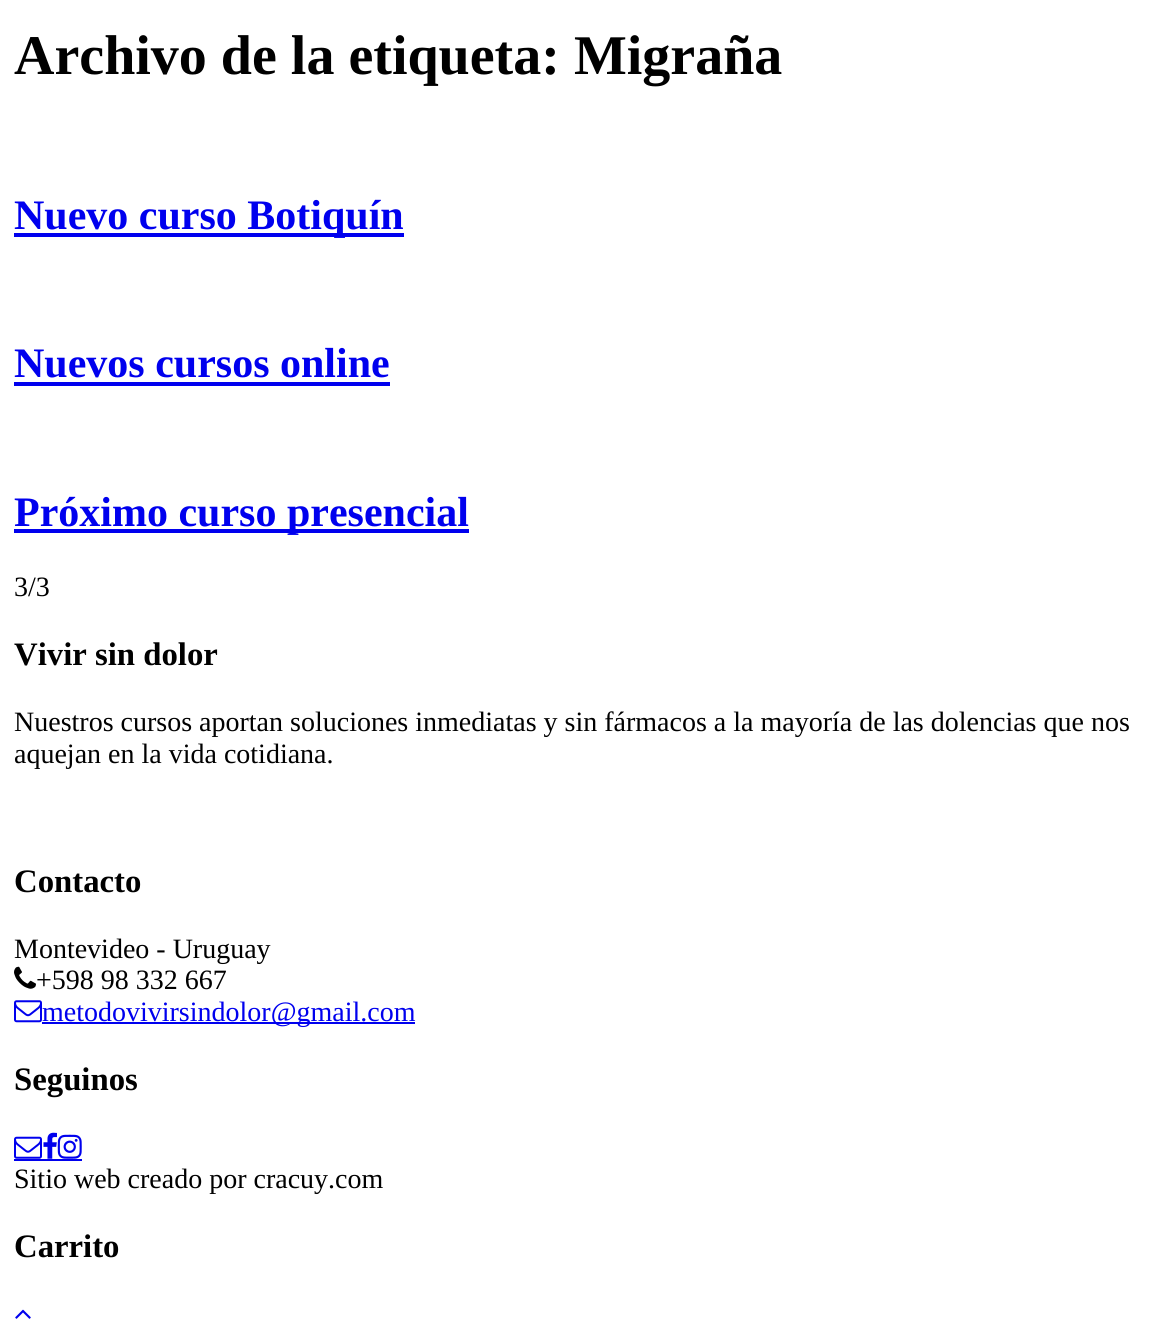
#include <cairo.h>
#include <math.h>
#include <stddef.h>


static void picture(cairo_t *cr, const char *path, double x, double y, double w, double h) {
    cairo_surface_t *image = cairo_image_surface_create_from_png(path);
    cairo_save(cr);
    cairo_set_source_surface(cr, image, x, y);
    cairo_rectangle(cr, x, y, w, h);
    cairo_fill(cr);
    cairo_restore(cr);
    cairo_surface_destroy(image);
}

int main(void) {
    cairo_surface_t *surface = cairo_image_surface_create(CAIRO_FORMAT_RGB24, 1175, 1322);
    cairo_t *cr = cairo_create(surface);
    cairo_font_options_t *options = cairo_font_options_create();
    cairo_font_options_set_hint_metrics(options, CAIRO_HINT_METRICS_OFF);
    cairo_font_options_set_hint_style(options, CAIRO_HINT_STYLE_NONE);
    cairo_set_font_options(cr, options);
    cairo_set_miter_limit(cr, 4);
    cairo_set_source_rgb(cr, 1, 1, 1);
    cairo_paint(cr);
    cairo_select_font_face(cr, "Liberation Serif", CAIRO_FONT_SLANT_NORMAL, CAIRO_FONT_WEIGHT_BOLD);
    cairo_set_font_size(cr, 56);
    cairo_set_source_rgb(cr, 0, 0, 0);
    cairo_move_to(cr, 14, 74);
    cairo_show_text(cr, "Archivo de la etiqueta: Migraña");
    cairo_set_source_rgb(cr, 0, 0, 0.933);
    cairo_rectangle(cr, 14, 233, 390, 4);
    cairo_fill(cr);
    cairo_set_font_size(cr, 42);
    cairo_move_to(cr, 14, 229);
    cairo_show_text(cr, "Nuevo curso Botiquín");
    cairo_move_to(cr, 14, 377);
    cairo_show_text(cr, "Nuevos cursos online");
    cairo_rectangle(cr, 14, 382, 376, 4);
    cairo_fill(cr);
    cairo_rectangle(cr, 14, 529, 455, 4);
    cairo_fill(cr);
    cairo_move_to(cr, 14, 526);
    cairo_show_text(cr, "Próximo curso presencial");
    cairo_select_font_face(cr, "Liberation Serif", CAIRO_FONT_SLANT_NORMAL, CAIRO_FONT_WEIGHT_NORMAL);
    cairo_set_font_size(cr, 28);
    cairo_set_source_rgb(cr, 0, 0, 0);
    cairo_move_to(cr, 14, 596);
    cairo_show_text(cr, "3/3");
    cairo_select_font_face(cr, "Liberation Serif", CAIRO_FONT_SLANT_NORMAL, CAIRO_FONT_WEIGHT_BOLD);
    cairo_set_font_size(cr, 32.75);
    cairo_move_to(cr, 14, 665);
    cairo_show_text(cr, "Vivir sin dolor");
    cairo_select_font_face(cr, "Liberation Serif", CAIRO_FONT_SLANT_NORMAL, CAIRO_FONT_WEIGHT_NORMAL);
    cairo_set_font_size(cr, 28);
    cairo_move_to(cr, 14, 731);
    cairo_show_text(cr, "Nuestros cursos aportan soluciones inmediatas y sin fármacos a la mayoría de las dolencias que nos");
    cairo_move_to(cr, 14, 763);
    cairo_show_text(cr, "aquejan en la vida cotidiana.");
    cairo_select_font_face(cr, "Liberation Serif", CAIRO_FONT_SLANT_NORMAL, CAIRO_FONT_WEIGHT_BOLD);
    cairo_set_font_size(cr, 32.75);
    cairo_move_to(cr, 14, 892);
    cairo_show_text(cr, "Contacto");
    cairo_select_font_face(cr, "Liberation Serif", CAIRO_FONT_SLANT_NORMAL, CAIRO_FONT_WEIGHT_NORMAL);
    cairo_set_font_size(cr, 28);
    cairo_move_to(cr, 14, 958);
    cairo_show_text(cr, "Montevideo - Uruguay");
    picture(cr, "img1.png", 14, 966, 22, 23);
    cairo_move_to(cr, 36, 989);
    cairo_show_text(cr, "+598 98 332 667");
    picture(cr, "img2.png", 14, 1000, 28, 23);
    cairo_set_source_rgb(cr, 0, 0, 0.933);
    cairo_rectangle(cr, 42, 1022, 373, 2);
    cairo_fill(cr);
    cairo_move_to(cr, 42, 1021);
    cairo_show_text(cr, "metodovivirsindolor@gmail.com");
    cairo_select_font_face(cr, "Liberation Serif", CAIRO_FONT_SLANT_NORMAL, CAIRO_FONT_WEIGHT_BOLD);
    cairo_set_font_size(cr, 32.75);
    cairo_set_source_rgb(cr, 0, 0, 0);
    cairo_move_to(cr, 14, 1090);
    cairo_show_text(cr, "Seguinos");
    picture(cr, "img3.png", 43, 1132, 14, 27);
    picture(cr, "img4.png", 57, 1134, 25, 25);
    picture(cr, "img5.png", 14, 1136, 28, 23);
    cairo_set_source_rgb(cr, 0, 0, 0.933);
    cairo_rectangle(cr, 14, 1159, 68, 2);
    cairo_fill(cr);
    cairo_select_font_face(cr, "Liberation Serif", CAIRO_FONT_SLANT_NORMAL, CAIRO_FONT_WEIGHT_NORMAL);
    cairo_set_font_size(cr, 28);
    cairo_set_source_rgb(cr, 0, 0, 0);
    cairo_move_to(cr, 14, 1188);
    cairo_show_text(cr, "Sitio web creado por cracuy.com");
    cairo_select_font_face(cr, "Liberation Serif", CAIRO_FONT_SLANT_NORMAL, CAIRO_FONT_WEIGHT_BOLD);
    cairo_set_font_size(cr, 32.75);
    cairo_move_to(cr, 14, 1257);
    cairo_show_text(cr, "Carrito");
    picture(cr, "img6.png", 15, 1309, 16, 10);
    cairo_surface_write_to_png(surface, "page.png");
    cairo_font_options_destroy(options);
    cairo_destroy(cr);
    cairo_surface_destroy(surface);
    return 0;
}
